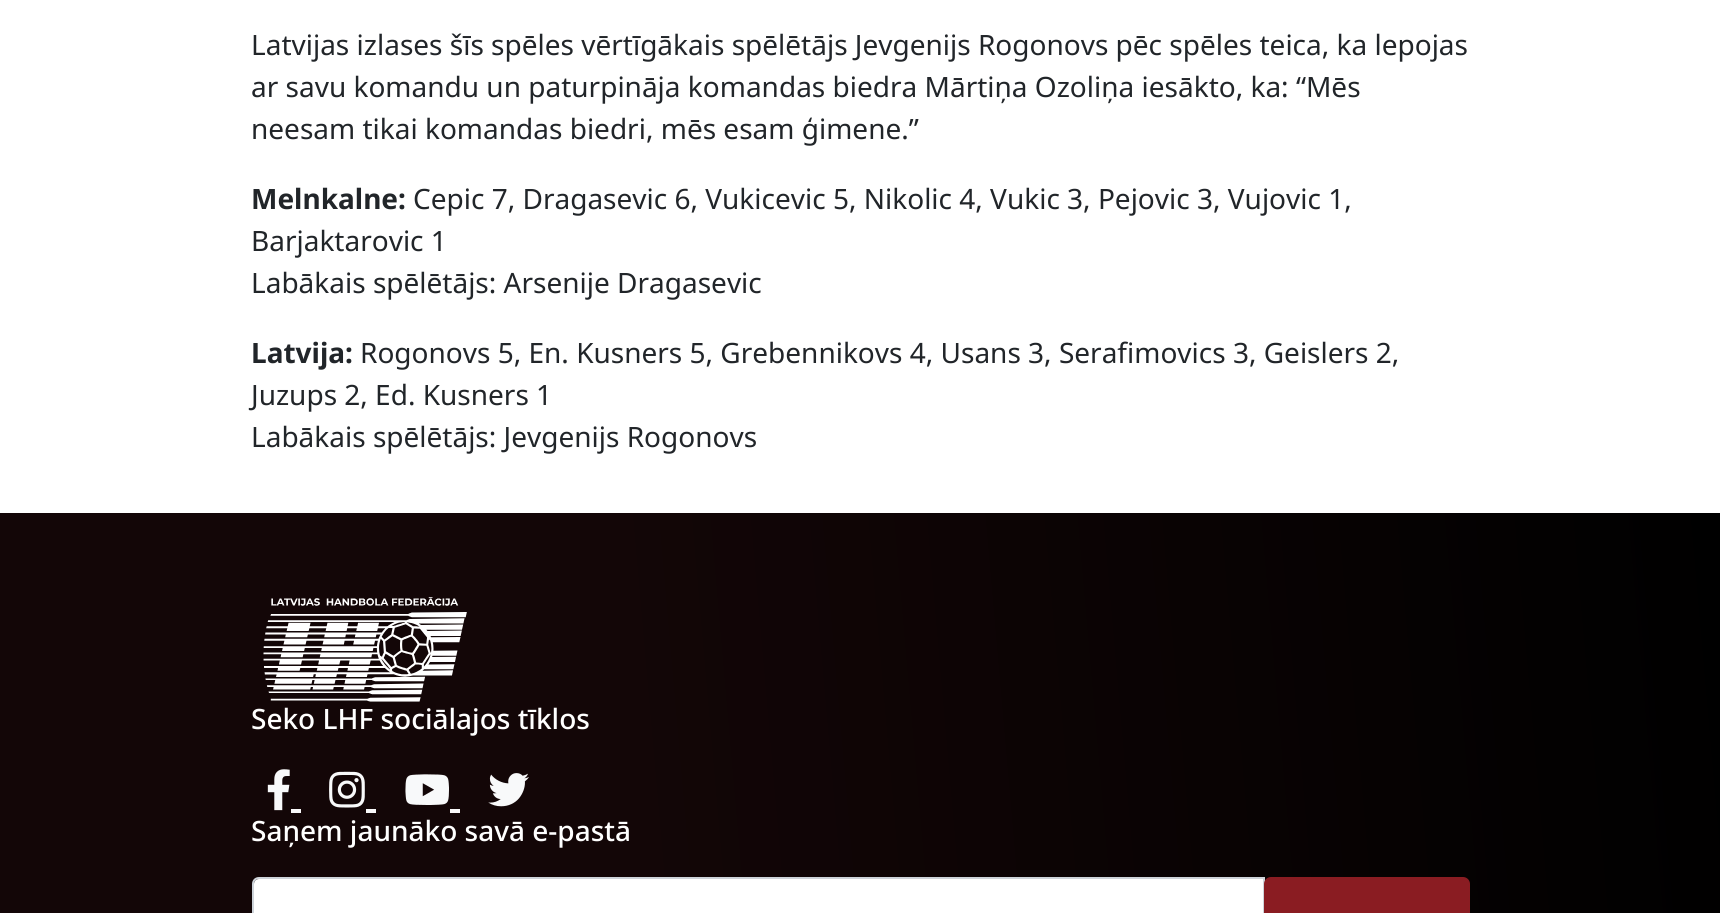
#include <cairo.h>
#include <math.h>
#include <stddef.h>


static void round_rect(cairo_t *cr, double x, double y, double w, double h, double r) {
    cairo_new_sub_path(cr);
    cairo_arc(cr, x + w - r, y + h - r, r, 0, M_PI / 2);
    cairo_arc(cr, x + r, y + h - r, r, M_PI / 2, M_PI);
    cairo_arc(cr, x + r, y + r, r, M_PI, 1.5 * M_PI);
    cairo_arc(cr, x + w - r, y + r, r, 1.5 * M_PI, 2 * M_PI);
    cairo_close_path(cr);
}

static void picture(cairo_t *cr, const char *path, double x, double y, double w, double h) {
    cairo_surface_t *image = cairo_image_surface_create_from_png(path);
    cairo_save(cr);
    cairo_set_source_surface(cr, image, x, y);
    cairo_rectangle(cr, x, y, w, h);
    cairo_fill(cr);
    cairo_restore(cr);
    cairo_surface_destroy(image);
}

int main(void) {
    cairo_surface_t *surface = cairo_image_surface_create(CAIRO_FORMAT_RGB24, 1720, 913);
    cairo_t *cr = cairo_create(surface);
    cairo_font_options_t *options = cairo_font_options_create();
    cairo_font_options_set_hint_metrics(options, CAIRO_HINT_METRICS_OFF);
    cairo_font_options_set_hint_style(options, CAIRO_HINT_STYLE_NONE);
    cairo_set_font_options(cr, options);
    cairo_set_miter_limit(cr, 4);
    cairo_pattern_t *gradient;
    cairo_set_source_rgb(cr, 1, 1, 1);
    cairo_paint(cr);
    cairo_select_font_face(cr, "Noto Sans", CAIRO_FONT_SLANT_NORMAL, CAIRO_FONT_WEIGHT_NORMAL);
    cairo_set_font_size(cr, 28);
    cairo_set_source_rgb(cr, 0.129, 0.145, 0.161);
    cairo_move_to(cr, 251, 55);
    cairo_show_text(cr, "Latvijas izlases šīs spēles vērtīgākais spēlētājs Jevgenijs Rogonovs pēc spēles teica, ka lepojas");
    cairo_move_to(cr, 251, 97);
    cairo_show_text(cr, "ar savu komandu un paturpināja komandas biedra Mārtiņa Ozoliņa iesākto, ka: “Mēs");
    cairo_move_to(cr, 251, 139);
    cairo_show_text(cr, "neesam tikai komandas biedri, mēs esam ģimene.”");
    cairo_select_font_face(cr, "Noto Sans", CAIRO_FONT_SLANT_NORMAL, CAIRO_FONT_WEIGHT_BOLD);
    cairo_move_to(cr, 251, 209);
    cairo_show_text(cr, "Melnkalne:");
    cairo_select_font_face(cr, "Noto Sans", CAIRO_FONT_SLANT_NORMAL, CAIRO_FONT_WEIGHT_NORMAL);
    cairo_move_to(cr, 413, 209);
    cairo_show_text(cr, "Cepic 7, Dragasevic 6, Vukicevic 5, Nikolic 4, Vukic 3, Pejovic 3, Vujovic 1,");
    cairo_move_to(cr, 251, 251);
    cairo_show_text(cr, "Barjaktarovic 1");
    cairo_move_to(cr, 251, 293);
    cairo_show_text(cr, "Labākais spēlētājs: Arsenije Dragasevic");
    cairo_select_font_face(cr, "Noto Sans", CAIRO_FONT_SLANT_NORMAL, CAIRO_FONT_WEIGHT_BOLD);
    cairo_move_to(cr, 251, 363);
    cairo_show_text(cr, "Latvija:");
    cairo_select_font_face(cr, "Noto Sans", CAIRO_FONT_SLANT_NORMAL, CAIRO_FONT_WEIGHT_NORMAL);
    cairo_move_to(cr, 360, 363);
    cairo_show_text(cr, "Rogonovs 5, En. Kusners 5, Grebennikovs 4, Usans 3, Serafimovics 3, Geislers 2,");
    cairo_move_to(cr, 251, 405);
    cairo_show_text(cr, "Juzups 2, Ed. Kusners 1");
    cairo_move_to(cr, 251, 447);
    cairo_show_text(cr, "Labākais spēlētājs: Jevgenijs Rogonovs");
    gradient = cairo_pattern_create_linear(-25, 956, 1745, 801);
    cairo_pattern_add_color_stop_rgba(gradient, 0.37, 0.075, 0.024, 0.027, 1);
    cairo_pattern_add_color_stop_rgba(gradient, 1, 0, 0, 0, 1);
    cairo_set_source(cr, gradient);
    cairo_pattern_destroy(gradient);
    cairo_rectangle(cr, 0, 513, 1720, 400);
    cairo_fill(cr);
    picture(cr, "img1.png", 263, 597, 204, 105);
    cairo_select_font_face(cr, "Noto Sans Medium", CAIRO_FONT_SLANT_NORMAL, CAIRO_FONT_WEIGHT_NORMAL);
    cairo_set_source_rgb(cr, 1, 1, 1);
    cairo_move_to(cr, 251, 729);
    cairo_show_text(cr, "Seko LHF sociālajos tīklos");
    picture(cr, "img2.png", 267, 769, 23, 42);
    cairo_set_source_rgb(cr, 0.973, 0.976, 0.98);
    cairo_rectangle(cr, 291, 809, 10, 4);
    cairo_fill(cr);
    picture(cr, "img3.png", 329, 771, 36, 37);
    cairo_rectangle(cr, 366, 809, 10, 4);
    cairo_fill(cr);
    picture(cr, "img4.png", 405, 774, 44, 31);
    cairo_rectangle(cr, 450, 809, 10, 4);
    cairo_fill(cr);
    picture(cr, "img5.png", 488, 773, 41, 34);
    cairo_set_source_rgb(cr, 1, 1, 1);
    cairo_move_to(cr, 251, 841);
    cairo_show_text(cr, "Saņem jaunāko savā e-pastā");
    cairo_new_path(cr);
    cairo_move_to(cr, 259, 879);
    cairo_line_to(cr, 1264, 879);
    cairo_line_to(cr, 1264, 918);
    cairo_line_to(cr, 259, 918);
    cairo_curve_to(cr, 256, 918, 254, 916, 254, 913);
    cairo_line_to(cr, 254, 884);
    cairo_curve_to(cr, 254, 881, 256, 879, 259, 879);
    cairo_close_path(cr);
    cairo_fill(cr);
    cairo_new_path(cr);
    cairo_move_to(cr, 259, 878);
    cairo_line_to(cr, 1264, 878);
    cairo_line_to(cr, 1264, 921);
    cairo_line_to(cr, 259, 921);
    cairo_curve_to(cr, 255.5, 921, 253, 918.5, 253, 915);
    cairo_line_to(cr, 253, 884);
    cairo_curve_to(cr, 253, 880.5, 255.5, 878, 259, 878);
    cairo_close_path(cr);
    cairo_set_source_rgb(cr, 0.808, 0.831, 0.855);
    cairo_stroke(cr);
    cairo_set_source_rgb(cr, 0.541, 0.11, 0.133);
    round_rect(cr, 1265, 878, 204, 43, 6);
    cairo_fill_preserve(cr);
    cairo_stroke(cr);
    cairo_surface_write_to_png(surface, "page.png");
    cairo_font_options_destroy(options);
    cairo_destroy(cr);
    cairo_surface_destroy(surface);
    return 0;
}
